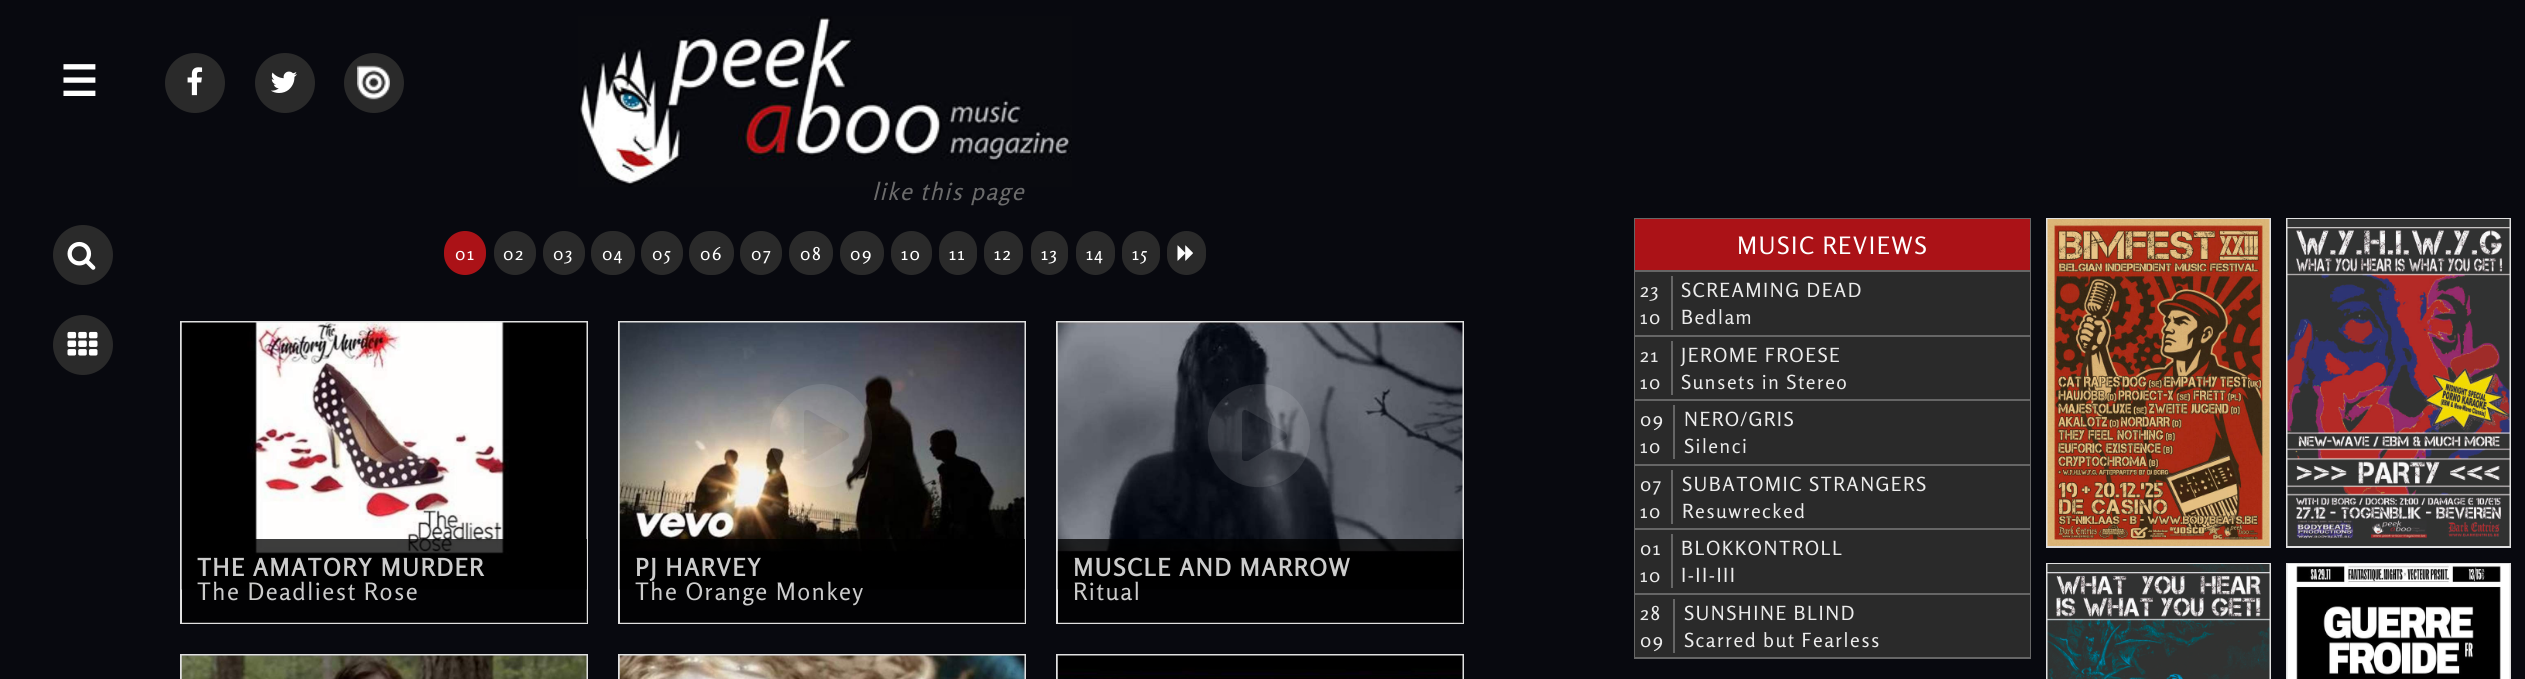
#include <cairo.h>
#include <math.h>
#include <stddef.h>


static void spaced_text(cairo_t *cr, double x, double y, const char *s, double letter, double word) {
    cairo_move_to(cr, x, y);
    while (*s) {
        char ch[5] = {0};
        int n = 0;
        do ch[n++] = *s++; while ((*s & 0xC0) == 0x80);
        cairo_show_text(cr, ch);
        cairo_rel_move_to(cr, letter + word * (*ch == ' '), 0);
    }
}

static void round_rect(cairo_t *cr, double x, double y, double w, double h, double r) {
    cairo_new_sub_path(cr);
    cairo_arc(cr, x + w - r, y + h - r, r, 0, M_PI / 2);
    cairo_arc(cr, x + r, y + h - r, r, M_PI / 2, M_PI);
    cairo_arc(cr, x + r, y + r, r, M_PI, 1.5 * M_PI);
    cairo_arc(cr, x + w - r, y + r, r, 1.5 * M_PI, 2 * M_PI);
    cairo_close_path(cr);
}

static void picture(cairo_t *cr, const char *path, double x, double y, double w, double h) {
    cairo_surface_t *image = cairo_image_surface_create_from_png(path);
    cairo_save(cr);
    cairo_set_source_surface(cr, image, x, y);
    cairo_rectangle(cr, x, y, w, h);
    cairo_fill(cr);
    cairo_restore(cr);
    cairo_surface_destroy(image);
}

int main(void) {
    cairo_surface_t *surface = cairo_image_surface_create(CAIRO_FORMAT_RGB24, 2525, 679);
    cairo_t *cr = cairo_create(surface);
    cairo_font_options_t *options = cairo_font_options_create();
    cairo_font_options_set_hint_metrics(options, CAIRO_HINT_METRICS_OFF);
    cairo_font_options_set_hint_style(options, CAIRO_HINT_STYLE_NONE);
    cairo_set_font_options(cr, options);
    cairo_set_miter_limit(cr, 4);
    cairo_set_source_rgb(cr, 0.035, 0.039, 0.059);
    cairo_paint(cr);
    cairo_select_font_face(cr, "DejaVu Sans", CAIRO_FONT_SLANT_NORMAL, CAIRO_FONT_WEIGHT_BOLD);
    cairo_set_font_size(cr, 42);
    cairo_set_source_rgb(cr, 1, 1, 1);
    spaced_text(cr, 60, 96, "☰", 1.5, 0);
    cairo_set_source_rgb(cr, 0.165, 0.165, 0.165);
    cairo_new_path(cr);
    cairo_arc(cr, 83, 255, 30, 0, 2 * M_PI);
    cairo_fill(cr);
    picture(cr, "img1.png", 67, 241, 29, 29);
    cairo_arc(cr, 83, 345, 30, 0, 2 * M_PI);
    cairo_fill(cr);
    picture(cr, "img2.png", 67, 331, 31, 25);
    cairo_arc(cr, 195, 83, 30, 0, 2 * M_PI);
    cairo_fill(cr);
    picture(cr, "img3.png", 187, 67, 16, 29);
    cairo_arc(cr, 285, 83, 30, 0, 2 * M_PI);
    cairo_fill(cr);
    picture(cr, "img4.png", 271, 71, 26, 22);
    cairo_arc(cr, 374, 83, 30, 0, 2 * M_PI);
    cairo_fill(cr);
    picture(cr, "img5.png", 357, 65, 33, 35);
    picture(cr, "img6.png", 578, 16, 494, 171);
    cairo_select_font_face(cr, "Rosario", CAIRO_FONT_SLANT_ITALIC, CAIRO_FONT_WEIGHT_NORMAL);
    cairo_set_font_size(cr, 24);
    cairo_set_source_rgb(cr, 0.42, 0.42, 0.42);
    spaced_text(cr, 872, 200, "like this page", 1.5, 0);
    cairo_set_source_rgb(cr, 0.671, 0.071, 0.09);
    round_rect(cr, 444, 231, 42, 44, 21);
    cairo_fill(cr);
    cairo_select_font_face(cr, "Rosario", CAIRO_FONT_SLANT_NORMAL, CAIRO_FONT_WEIGHT_NORMAL);
    cairo_set_font_size(cr, 18);
    cairo_set_source_rgb(cr, 1, 1, 1);
    spaced_text(cr, 455, 260, "01", 1.5, 0);
    cairo_set_source_rgb(cr, 0.165, 0.165, 0.165);
    round_rect(cr, 494, 231, 42, 44, 21);
    cairo_fill(cr);
    cairo_set_source_rgb(cr, 1, 1, 1);
    spaced_text(cr, 503, 260, "02", 1.5, 0);
    cairo_set_source_rgb(cr, 0.165, 0.165, 0.165);
    round_rect(cr, 543, 231, 42, 44, 21);
    cairo_fill(cr);
    cairo_set_source_rgb(cr, 1, 1, 1);
    spaced_text(cr, 553, 260, "03", 1.5, 0);
    cairo_set_source_rgb(cr, 0.165, 0.165, 0.165);
    round_rect(cr, 591, 231, 44, 44, 21);
    cairo_fill(cr);
    cairo_set_source_rgb(cr, 1, 1, 1);
    spaced_text(cr, 602, 260, "04", 1.5, 0);
    cairo_set_source_rgb(cr, 0.165, 0.165, 0.165);
    round_rect(cr, 641, 231, 42, 44, 21);
    cairo_fill(cr);
    cairo_set_source_rgb(cr, 1, 1, 1);
    spaced_text(cr, 652, 260, "05", 1.5, 0);
    cairo_set_source_rgb(cr, 0.165, 0.165, 0.165);
    round_rect(cr, 689, 231, 45, 44, 21);
    cairo_fill(cr);
    cairo_set_source_rgb(cr, 1, 1, 1);
    spaced_text(cr, 700, 260, "06", 1.5, 0);
    cairo_set_source_rgb(cr, 0.165, 0.165, 0.165);
    round_rect(cr, 740, 231, 42, 44, 21);
    cairo_fill(cr);
    cairo_set_source_rgb(cr, 1, 1, 1);
    spaced_text(cr, 751, 260, "07", 1.5, 0);
    cairo_set_source_rgb(cr, 0.165, 0.165, 0.165);
    round_rect(cr, 789, 231, 44, 44, 21);
    cairo_fill(cr);
    cairo_set_source_rgb(cr, 1, 1, 1);
    spaced_text(cr, 800, 260, "08", 1.5, 0);
    cairo_set_source_rgb(cr, 0.165, 0.165, 0.165);
    round_rect(cr, 840, 231, 44, 44, 21);
    cairo_fill(cr);
    cairo_set_source_rgb(cr, 1, 1, 1);
    spaced_text(cr, 850, 260, "09", 1.5, 0);
    cairo_set_source_rgb(cr, 0.165, 0.165, 0.165);
    round_rect(cr, 891, 231, 41, 44, 20.5);
    cairo_fill(cr);
    cairo_set_source_rgb(cr, 1, 1, 1);
    spaced_text(cr, 901, 260, "10", 1.5, 0);
    cairo_set_source_rgb(cr, 0.165, 0.165, 0.165);
    round_rect(cr, 939, 231, 38, 44, 19);
    cairo_fill(cr);
    cairo_set_source_rgb(cr, 1, 1, 1);
    spaced_text(cr, 949, 260, "11", 1.5, 0);
    cairo_set_source_rgb(cr, 0.165, 0.165, 0.165);
    round_rect(cr, 984, 231, 39, 44, 19.5);
    cairo_fill(cr);
    cairo_set_source_rgb(cr, 1, 1, 1);
    spaced_text(cr, 994, 260, "12", 1.5, 0);
    cairo_set_source_rgb(cr, 0.165, 0.165, 0.165);
    round_rect(cr, 1031, 231, 37, 44, 18.5);
    cairo_fill(cr);
    cairo_set_source_rgb(cr, 1, 1, 1);
    spaced_text(cr, 1041, 260, "13", 1.5, 0);
    cairo_set_source_rgb(cr, 0.165, 0.165, 0.165);
    round_rect(cr, 1076, 231, 39, 44, 19.5);
    cairo_fill(cr);
    cairo_set_source_rgb(cr, 1, 1, 1);
    spaced_text(cr, 1086, 260, "14", 1.5, 0);
    cairo_set_source_rgb(cr, 0.165, 0.165, 0.165);
    round_rect(cr, 1122, 231, 38, 44, 19);
    cairo_fill(cr);
    cairo_set_source_rgb(cr, 1, 1, 1);
    spaced_text(cr, 1132, 260, "15", 1.5, 0);
    cairo_set_source_rgb(cr, 0.165, 0.165, 0.165);
    round_rect(cr, 1167, 231, 39, 44, 19.5);
    cairo_fill(cr);
    picture(cr, "img7.png", 1177, 245, 16, 16);
    cairo_rectangle(cr, 181, 322, 406, 301);
    cairo_set_source_rgb(cr, 0.882, 0.882, 0.882);
    cairo_stroke(cr);
    picture(cr, "img8.png", 181, 322, 406, 268);
    cairo_set_source_rgba(cr, 1, 1, 1, 0.1);
    cairo_new_path(cr);
    cairo_move_to(cr, 357, 391);
    cairo_curve_to(cr, 366, 386, 376, 384, 386, 384);
    cairo_curve_to(cr, 437, 387, 452, 455, 409, 480);
    cairo_curve_to(cr, 400, 485, 390, 488, 379, 487);
    cairo_curve_to(cr, 329, 484, 314, 416, 357, 391);
    cairo_close_path(cr);
    cairo_move_to(cr, 409, 439);
    cairo_curve_to(cr, 410, 439, 411, 437, 411, 436);
    cairo_curve_to(cr, 411, 434, 410, 433, 409, 432);
    cairo_line_to(cr, 372, 411);
    cairo_curve_to(cr, 371, 410, 369, 410, 368, 410);
    cairo_curve_to(cr, 366, 411, 366, 413, 366, 414);
    cairo_line_to(cr, 366, 457);
    cairo_curve_to(cr, 366, 459, 366, 460, 368, 461);
    cairo_line_to(cr, 370, 461);
    cairo_line_to(cr, 372, 461);
    cairo_close_path(cr);
    cairo_fill(cr);
    cairo_set_source_rgba(cr, 0, 0, 0, 0.76);
    cairo_rectangle(cr, 182, 539, 405, 84);
    cairo_fill(cr);
    cairo_select_font_face(cr, "Rosario", CAIRO_FONT_SLANT_NORMAL, CAIRO_FONT_WEIGHT_BOLD);
    cairo_set_font_size(cr, 24);
    cairo_set_source_rgb(cr, 0.8, 0.8, 0.8);
    spaced_text(cr, 197, 576, "THE AMATORY MURDER", 1.5, 0);
    cairo_select_font_face(cr, "Rosario", CAIRO_FONT_SLANT_NORMAL, CAIRO_FONT_WEIGHT_NORMAL);
    spaced_text(cr, 197, 600, "The Deadliest Rose", 1.5, 0);
    cairo_rectangle(cr, 619, 322, 406, 301);
    cairo_set_source_rgb(cr, 0.882, 0.882, 0.882);
    cairo_stroke(cr);
    picture(cr, "img9.png", 619, 322, 406, 268);
    cairo_set_source_rgba(cr, 1, 1, 1, 0.1);
    cairo_new_path(cr);
    cairo_move_to(cr, 795, 391);
    cairo_curve_to(cr, 804, 386, 814, 384, 824, 384);
    cairo_curve_to(cr, 875, 387, 890, 455, 847, 480);
    cairo_curve_to(cr, 838, 485, 828, 488, 817, 487);
    cairo_curve_to(cr, 767, 484, 752, 416, 795, 391);
    cairo_close_path(cr);
    cairo_move_to(cr, 847, 439);
    cairo_curve_to(cr, 848, 439, 849, 437, 849, 436);
    cairo_curve_to(cr, 849, 434, 848, 433, 847, 432);
    cairo_line_to(cr, 810, 411);
    cairo_curve_to(cr, 809, 410, 807, 410, 806, 410);
    cairo_curve_to(cr, 804, 411, 804, 413, 804, 414);
    cairo_line_to(cr, 804, 457);
    cairo_curve_to(cr, 804, 459, 804, 460, 806, 461);
    cairo_line_to(cr, 808, 461);
    cairo_line_to(cr, 810, 461);
    cairo_close_path(cr);
    cairo_fill(cr);
    cairo_set_source_rgba(cr, 0, 0, 0, 0.76);
    cairo_rectangle(cr, 620, 539, 405, 84);
    cairo_fill(cr);
    cairo_select_font_face(cr, "Rosario", CAIRO_FONT_SLANT_NORMAL, CAIRO_FONT_WEIGHT_BOLD);
    cairo_set_source_rgb(cr, 0.8, 0.8, 0.8);
    spaced_text(cr, 635, 576, "PJ HARVEY", 1.5, 0);
    cairo_select_font_face(cr, "Rosario", CAIRO_FONT_SLANT_NORMAL, CAIRO_FONT_WEIGHT_NORMAL);
    spaced_text(cr, 635, 600, "The Orange Monkey", 1.5, 0);
    cairo_rectangle(cr, 1057, 322, 406, 301);
    cairo_set_source_rgb(cr, 0.882, 0.882, 0.882);
    cairo_stroke(cr);
    picture(cr, "img10.png", 1057, 322, 406, 268);
    cairo_set_source_rgba(cr, 1, 1, 1, 0.1);
    cairo_new_path(cr);
    cairo_move_to(cr, 1233, 391);
    cairo_curve_to(cr, 1242, 386, 1252, 384, 1262, 384);
    cairo_curve_to(cr, 1313, 387, 1328, 455, 1285, 480);
    cairo_curve_to(cr, 1276, 485, 1266, 488, 1255, 487);
    cairo_curve_to(cr, 1205, 484, 1190, 416, 1233, 391);
    cairo_close_path(cr);
    cairo_move_to(cr, 1285, 439);
    cairo_curve_to(cr, 1286, 439, 1287, 437, 1287, 436);
    cairo_curve_to(cr, 1287, 434, 1286, 433, 1285, 432);
    cairo_line_to(cr, 1248, 411);
    cairo_curve_to(cr, 1247, 410, 1245, 410, 1244, 410);
    cairo_curve_to(cr, 1242, 411, 1242, 413, 1242, 414);
    cairo_line_to(cr, 1242, 457);
    cairo_curve_to(cr, 1242, 459, 1242, 460, 1244, 461);
    cairo_line_to(cr, 1246, 461);
    cairo_line_to(cr, 1248, 461);
    cairo_close_path(cr);
    cairo_fill(cr);
    cairo_set_source_rgba(cr, 0, 0, 0, 0.76);
    cairo_rectangle(cr, 1058, 539, 405, 84);
    cairo_fill(cr);
    cairo_select_font_face(cr, "Rosario", CAIRO_FONT_SLANT_NORMAL, CAIRO_FONT_WEIGHT_BOLD);
    cairo_set_source_rgb(cr, 0.8, 0.8, 0.8);
    spaced_text(cr, 1073, 576, "MUSCLE AND MARROW", 1.5, 0);
    cairo_select_font_face(cr, "Rosario", CAIRO_FONT_SLANT_NORMAL, CAIRO_FONT_WEIGHT_NORMAL);
    spaced_text(cr, 1073, 600, "Ritual", 1.5, 0);
    cairo_rectangle(cr, 181, 655, 406, 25);
    cairo_set_source_rgb(cr, 0.882, 0.882, 0.882);
    cairo_stroke(cr);
    picture(cr, "img11.png", 181, 655, 406, 24);
    cairo_rectangle(cr, 619, 655, 406, 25);
    cairo_stroke(cr);
    picture(cr, "img12.png", 619, 655, 406, 24);
    cairo_rectangle(cr, 1057, 655, 406, 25);
    cairo_stroke(cr);
    picture(cr, "img13.png", 1057, 655, 406, 24);
    cairo_rectangle(cr, 1635, 219, 395, 439);
    cairo_set_source_rgb(cr, 0.4, 0.4, 0.4);
    cairo_stroke(cr);
    cairo_set_source_rgb(cr, 0.671, 0.071, 0.09);
    cairo_rectangle(cr, 1635, 219, 395, 51);
    cairo_fill(cr);
    cairo_set_source_rgb(cr, 1, 1, 1);
    spaced_text(cr, 1737, 254, "MUSIC REVIEWS", 1.5, 0);
    cairo_set_source_rgb(cr, 0.165, 0.165, 0.165);
    cairo_rectangle(cr, 1635, 272, 395, 63);
    cairo_fill(cr);
    cairo_set_source_rgb(cr, 0.4, 0.4, 0.4);
    cairo_rectangle(cr, 1635, 270, 395, 2);
    cairo_fill(cr);
    cairo_rectangle(cr, 1671, 276, 2, 54);
    cairo_fill(cr);
    cairo_set_font_size(cr, 19.5);
    cairo_set_source_rgb(cr, 0.918, 0.918, 0.918);
    spaced_text(cr, 1640, 297, "23", 1.5, 0);
    spaced_text(cr, 1640, 324, "10", 1.5, 0);
    spaced_text(cr, 1681, 297, "SCREAMING DEAD", 1.5, 0);
    spaced_text(cr, 1681, 324, "Bedlam", 1.5, 0);
    cairo_set_source_rgb(cr, 0.165, 0.165, 0.165);
    cairo_rectangle(cr, 1635, 337, 395, 62);
    cairo_fill(cr);
    cairo_set_source_rgb(cr, 0.4, 0.4, 0.4);
    cairo_rectangle(cr, 1635, 335, 395, 2);
    cairo_fill(cr);
    cairo_rectangle(cr, 1671, 341, 2, 54);
    cairo_fill(cr);
    cairo_set_source_rgb(cr, 0.918, 0.918, 0.918);
    spaced_text(cr, 1640, 362, "21", 1.5, 0);
    spaced_text(cr, 1640, 389, "10", 1.5, 0);
    spaced_text(cr, 1681, 362, "JEROME FROESE", 1.5, 0);
    spaced_text(cr, 1681, 389, "Sunsets in Stereo", 1.5, 0);
    cairo_set_source_rgb(cr, 0.165, 0.165, 0.165);
    cairo_rectangle(cr, 1635, 401, 395, 63);
    cairo_fill(cr);
    cairo_set_source_rgb(cr, 0.4, 0.4, 0.4);
    cairo_rectangle(cr, 1635, 399, 395, 2);
    cairo_fill(cr);
    cairo_rectangle(cr, 1673, 405, 2, 54);
    cairo_fill(cr);
    cairo_set_source_rgb(cr, 0.918, 0.918, 0.918);
    spaced_text(cr, 1640, 426, "09", 1.5, 0);
    spaced_text(cr, 1640, 453, "10", 1.5, 0);
    spaced_text(cr, 1684, 426, "NERO/GRIS", 1.5, 0);
    spaced_text(cr, 1684, 453, "Silenci", 1.5, 0);
    cairo_set_source_rgb(cr, 0.165, 0.165, 0.165);
    cairo_rectangle(cr, 1635, 466, 395, 62);
    cairo_fill(cr);
    cairo_set_source_rgb(cr, 0.4, 0.4, 0.4);
    cairo_rectangle(cr, 1635, 464, 395, 2);
    cairo_fill(cr);
    cairo_rectangle(cr, 1671, 470, 2, 54);
    cairo_fill(cr);
    cairo_set_source_rgb(cr, 0.918, 0.918, 0.918);
    spaced_text(cr, 1640, 491, "07", 1.5, 0);
    spaced_text(cr, 1640, 518, "10", 1.5, 0);
    spaced_text(cr, 1682, 491, "SUBATOMIC STRANGERS", 1.5, 0);
    spaced_text(cr, 1682, 518, "Resuwrecked", 1.5, 0);
    cairo_set_source_rgb(cr, 0.165, 0.165, 0.165);
    cairo_rectangle(cr, 1635, 530, 395, 63);
    cairo_fill(cr);
    cairo_set_source_rgb(cr, 0.4, 0.4, 0.4);
    cairo_rectangle(cr, 1635, 528, 395, 2);
    cairo_fill(cr);
    cairo_rectangle(cr, 1671, 534, 2, 54);
    cairo_fill(cr);
    cairo_set_source_rgb(cr, 0.918, 0.918, 0.918);
    spaced_text(cr, 1640, 555, "01", 1.5, 0);
    spaced_text(cr, 1640, 582, "10", 1.5, 0);
    spaced_text(cr, 1681, 555, "BLOKKONTROLL", 1.5, 0);
    spaced_text(cr, 1681, 582, "I-II-III", 1.5, 0);
    cairo_set_source_rgb(cr, 0.165, 0.165, 0.165);
    cairo_rectangle(cr, 1635, 595, 395, 62);
    cairo_fill(cr);
    cairo_set_source_rgb(cr, 0.4, 0.4, 0.4);
    cairo_rectangle(cr, 1635, 593, 395, 2);
    cairo_fill(cr);
    cairo_rectangle(cr, 1673, 599, 2, 54);
    cairo_fill(cr);
    cairo_set_source_rgb(cr, 0.918, 0.918, 0.918);
    spaced_text(cr, 1640, 620, "28", 1.5, 0);
    spaced_text(cr, 1640, 647, "09", 1.5, 0);
    spaced_text(cr, 1684, 620, "SUNSHINE BLIND", 1.5, 0);
    spaced_text(cr, 1684, 647, "Scarred but Fearless", 1.5, 0);
    cairo_rectangle(cr, 2047, 219, 223, 328);
    cairo_set_source_rgb(cr, 0.882, 0.882, 0.882);
    cairo_stroke(cr);
    picture(cr, "img14.png", 2047, 219, 223, 327);
    cairo_rectangle(cr, 2287, 219, 223, 328);
    cairo_stroke(cr);
    picture(cr, "img15.png", 2287, 219, 223, 327);
    cairo_rectangle(cr, 2047, 564, 223, 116);
    cairo_stroke(cr);
    picture(cr, "img16.png", 2047, 564, 223, 115);
    cairo_rectangle(cr, 2287, 564, 223, 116);
    cairo_stroke(cr);
    picture(cr, "img17.png", 2287, 564, 223, 115);
    cairo_surface_write_to_png(surface, "page.png");
    cairo_font_options_destroy(options);
    cairo_destroy(cr);
    cairo_surface_destroy(surface);
    return 0;
}
